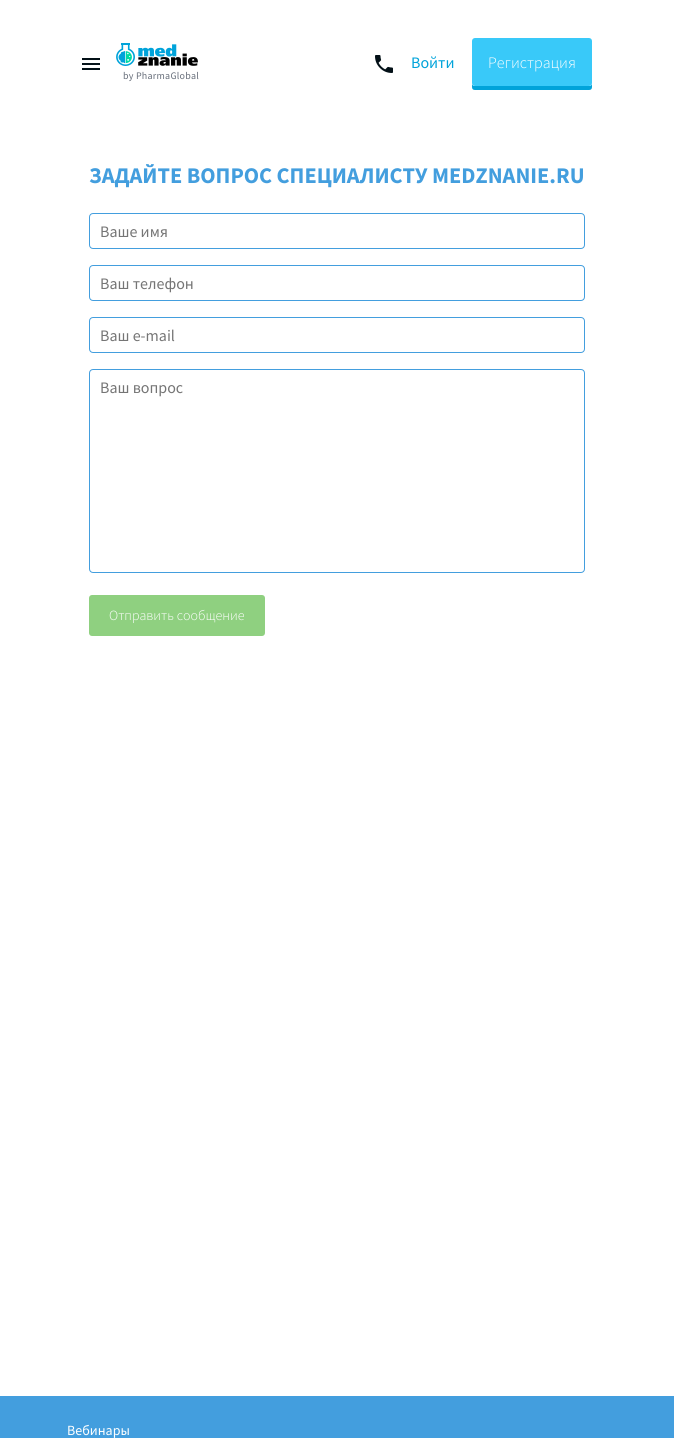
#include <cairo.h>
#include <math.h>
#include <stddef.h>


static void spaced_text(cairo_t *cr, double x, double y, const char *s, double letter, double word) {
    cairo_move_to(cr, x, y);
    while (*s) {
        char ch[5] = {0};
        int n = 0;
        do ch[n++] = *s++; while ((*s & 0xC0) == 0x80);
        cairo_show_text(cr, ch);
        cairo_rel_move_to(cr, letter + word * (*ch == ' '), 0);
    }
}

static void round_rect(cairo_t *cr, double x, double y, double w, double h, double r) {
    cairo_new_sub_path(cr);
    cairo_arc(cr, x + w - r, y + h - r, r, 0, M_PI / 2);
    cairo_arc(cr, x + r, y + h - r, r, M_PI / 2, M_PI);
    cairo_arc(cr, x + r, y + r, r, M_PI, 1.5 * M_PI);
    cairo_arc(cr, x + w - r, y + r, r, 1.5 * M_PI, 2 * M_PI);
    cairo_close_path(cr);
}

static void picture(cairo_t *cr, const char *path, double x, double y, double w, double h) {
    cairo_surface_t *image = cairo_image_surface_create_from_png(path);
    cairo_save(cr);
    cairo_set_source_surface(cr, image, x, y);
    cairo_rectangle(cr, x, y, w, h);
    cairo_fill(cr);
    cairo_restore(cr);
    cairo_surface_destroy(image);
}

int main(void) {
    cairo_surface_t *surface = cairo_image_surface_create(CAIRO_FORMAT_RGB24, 674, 1438);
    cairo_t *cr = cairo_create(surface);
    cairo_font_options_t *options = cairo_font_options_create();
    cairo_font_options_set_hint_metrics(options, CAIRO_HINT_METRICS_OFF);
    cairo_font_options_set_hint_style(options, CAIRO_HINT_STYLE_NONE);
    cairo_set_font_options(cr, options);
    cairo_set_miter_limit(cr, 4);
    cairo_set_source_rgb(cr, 1, 1, 1);
    cairo_paint(cr);
    picture(cr, "img1.png", 375, 55, 18, 18);
    cairo_select_font_face(cr, "Source Sans Pro", CAIRO_FONT_SLANT_NORMAL, CAIRO_FONT_WEIGHT_NORMAL);
    cairo_set_font_size(cr, 16);
    cairo_set_source_rgb(cr, 0, 0.639, 0.855);
    cairo_move_to(cr, 411, 68);
    cairo_show_text(cr, "Войти");
    cairo_new_path(cr);
    cairo_move_to(cr, 472, 83);
    cairo_line_to(cr, 472, 87);
    cairo_curve_to(cr, 472, 89, 473, 90, 475, 90);
    cairo_line_to(cr, 589, 90);
    cairo_curve_to(cr, 591, 90, 592, 89, 592, 87);
    cairo_line_to(cr, 592, 83);
    cairo_curve_to(cr, 592, 85, 591, 86, 589, 86);
    cairo_line_to(cr, 475, 86);
    cairo_curve_to(cr, 473, 86, 472, 85, 472, 83);
    cairo_close_path(cr);
    cairo_fill(cr);
    cairo_set_source_rgb(cr, 0.224, 0.788, 0.976);
    round_rect(cr, 472, 38, 120, 48, 3);
    cairo_fill(cr);
    cairo_select_font_face(cr, "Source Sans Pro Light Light", CAIRO_FONT_SLANT_NORMAL, CAIRO_FONT_WEIGHT_NORMAL);
    cairo_set_source_rgb(cr, 1, 1, 1);
    cairo_move_to(cr, 488, 68);
    cairo_show_text(cr, "Регистрация");
    picture(cr, "img2.png", 82, 58, 18, 12);
    picture(cr, "img3.png", 116, 43, 82, 23);
    cairo_select_font_face(cr, "Source Sans Pro", CAIRO_FONT_SLANT_NORMAL, CAIRO_FONT_WEIGHT_NORMAL);
    cairo_set_font_size(cr, 10);
    cairo_set_source_rgb(cr, 0.404, 0.431, 0.478);
    spaced_text(cr, 123, 79, "by PharmaGlobal", 0.25, 0);
    cairo_select_font_face(cr, "Source Sans Pro", CAIRO_FONT_SLANT_NORMAL, CAIRO_FONT_WEIGHT_BOLD);
    cairo_set_font_size(cr, 22.4);
    cairo_set_source_rgb(cr, 0.263, 0.62, 0.871);
    cairo_move_to(cr, 89, 183);
    cairo_show_text(cr, "ЗАДАЙТЕ ВОПРОС СПЕЦИАЛИСТУ MEDZNANIE.RU");
    round_rect(cr, 89.5, 213.5, 495, 35, 3.5);
    cairo_set_line_width(cr, 1);
    cairo_stroke(cr);
    cairo_select_font_face(cr, "Source Sans Pro", CAIRO_FONT_SLANT_NORMAL, CAIRO_FONT_WEIGHT_NORMAL);
    cairo_set_font_size(cr, 16);
    cairo_set_source_rgb(cr, 0.459, 0.459, 0.459);
    cairo_move_to(cr, 100, 237);
    cairo_show_text(cr, "Ваше имя");
    round_rect(cr, 89.5, 265.5, 495, 35, 3.5);
    cairo_set_source_rgb(cr, 0.263, 0.62, 0.871);
    cairo_stroke(cr);
    cairo_set_source_rgb(cr, 0.459, 0.459, 0.459);
    cairo_move_to(cr, 100, 289);
    cairo_show_text(cr, "Ваш телефон");
    round_rect(cr, 89.5, 317.5, 495, 35, 3.5);
    cairo_set_source_rgb(cr, 0.263, 0.62, 0.871);
    cairo_stroke(cr);
    cairo_set_source_rgb(cr, 0.459, 0.459, 0.459);
    cairo_move_to(cr, 100, 341);
    cairo_show_text(cr, "Ваш e-mail");
    round_rect(cr, 89.5, 369.5, 495, 203, 3.5);
    cairo_set_source_rgb(cr, 0.263, 0.62, 0.871);
    cairo_stroke(cr);
    cairo_set_source_rgb(cr, 0.459, 0.459, 0.459);
    cairo_move_to(cr, 100, 393);
    cairo_show_text(cr, "Ваш вопрос");
    cairo_set_source_rgb(cr, 0.561, 0.816, 0.502);
    round_rect(cr, 89, 595, 176, 41, 3);
    cairo_fill(cr);
    cairo_select_font_face(cr, "Source Sans Pro Light Light", CAIRO_FONT_SLANT_NORMAL, CAIRO_FONT_WEIGHT_NORMAL);
    cairo_set_font_size(cr, 14);
    cairo_set_source_rgb(cr, 1, 1, 1);
    cairo_move_to(cr, 109, 620);
    cairo_show_text(cr, "Отправить сообщение");
    cairo_set_source_rgb(cr, 0.263, 0.62, 0.871);
    cairo_rectangle(cr, 0, 1396, 674, 42);
    cairo_fill(cr);
    cairo_select_font_face(cr, "Source Sans Pro", CAIRO_FONT_SLANT_NORMAL, CAIRO_FONT_WEIGHT_NORMAL);
    cairo_set_source_rgb(cr, 1, 1, 1);
    cairo_move_to(cr, 67, 1435);
    cairo_show_text(cr, "Вебинары");
    cairo_surface_write_to_png(surface, "page.png");
    cairo_font_options_destroy(options);
    cairo_destroy(cr);
    cairo_surface_destroy(surface);
    return 0;
}
